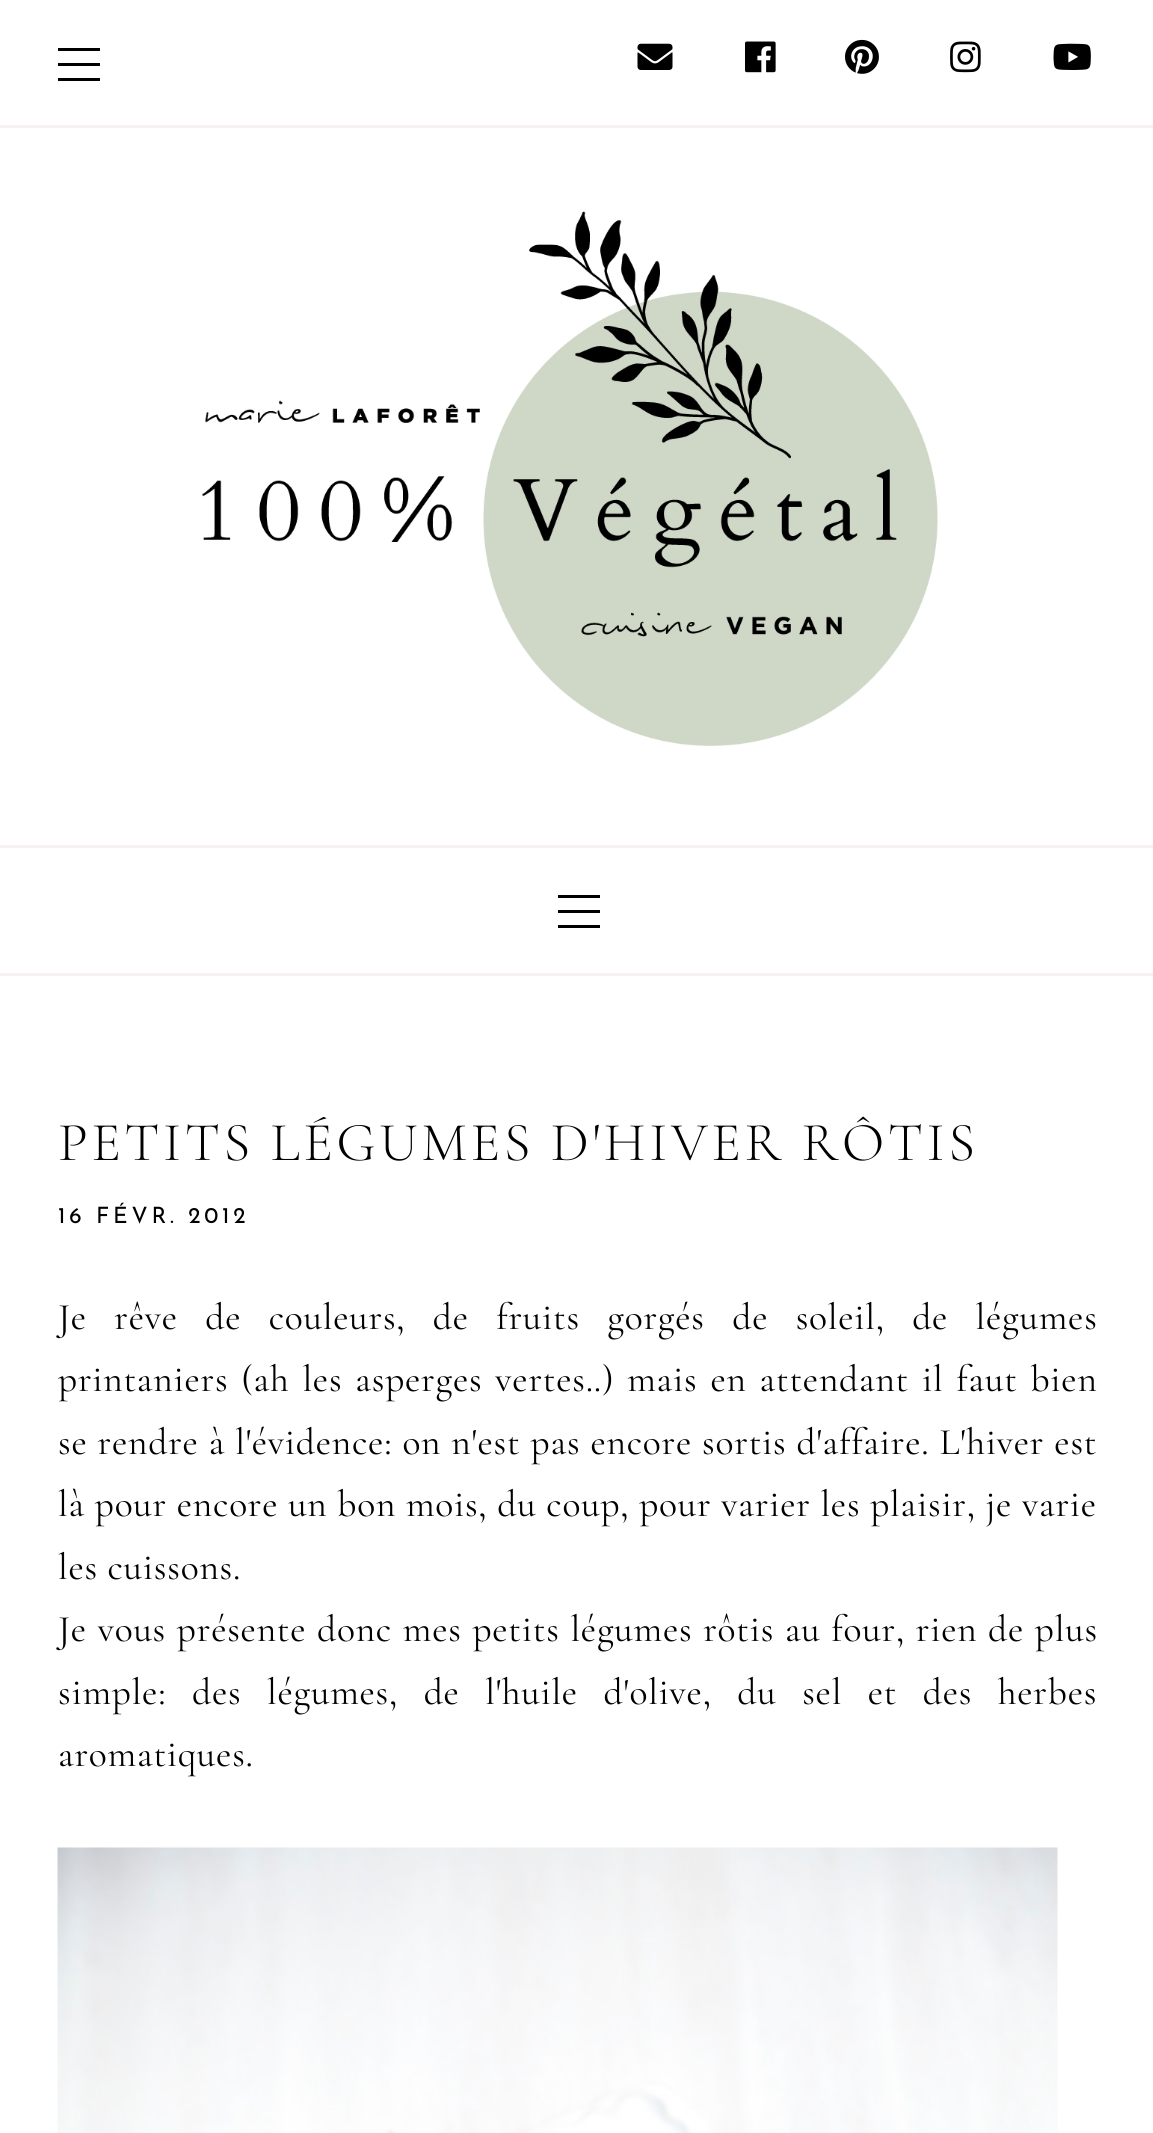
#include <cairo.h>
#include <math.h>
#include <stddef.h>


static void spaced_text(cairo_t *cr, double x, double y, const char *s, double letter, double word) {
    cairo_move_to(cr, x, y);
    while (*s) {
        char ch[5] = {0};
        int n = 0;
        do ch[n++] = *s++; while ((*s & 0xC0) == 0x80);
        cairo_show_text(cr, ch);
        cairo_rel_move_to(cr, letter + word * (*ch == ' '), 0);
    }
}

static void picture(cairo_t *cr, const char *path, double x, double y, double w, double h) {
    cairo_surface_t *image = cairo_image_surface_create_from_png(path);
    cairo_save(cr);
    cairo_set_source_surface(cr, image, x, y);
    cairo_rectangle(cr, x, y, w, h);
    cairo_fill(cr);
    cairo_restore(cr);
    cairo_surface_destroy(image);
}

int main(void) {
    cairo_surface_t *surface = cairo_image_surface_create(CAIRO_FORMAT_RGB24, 1153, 2133);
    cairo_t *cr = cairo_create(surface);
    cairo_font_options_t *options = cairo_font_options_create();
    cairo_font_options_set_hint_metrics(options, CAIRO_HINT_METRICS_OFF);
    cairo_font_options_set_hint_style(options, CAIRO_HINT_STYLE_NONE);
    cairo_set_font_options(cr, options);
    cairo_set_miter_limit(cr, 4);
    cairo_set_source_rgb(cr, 1, 1, 1);
    cairo_paint(cr);
    cairo_set_source_rgb(cr, 0.961, 0.949, 0.957);
    cairo_rectangle(cr, 0, 125, 1153, 3);
    cairo_fill(cr);
    cairo_set_source_rgb(cr, 0, 0, 0);
    cairo_rectangle(cr, 58, 63, 42, 3);
    cairo_fill(cr);
    cairo_rectangle(cr, 58, 48, 42, 3);
    cairo_fill(cr);
    cairo_rectangle(cr, 58, 78, 42, 3);
    cairo_fill(cr);
    picture(cr, "img1.png", 637, 43, 36, 27);
    picture(cr, "img2.png", 745, 41, 31, 32);
    picture(cr, "img3.png", 845, 39, 34, 35);
    picture(cr, "img4.png", 950, 41, 31, 32);
    picture(cr, "img5.png", 1053, 43, 38, 27);
    picture(cr, "img6.png", 202, 211, 736, 535);
    cairo_set_source_rgb(cr, 0.961, 0.949, 0.957);
    cairo_rectangle(cr, 0, 845, 1153, 3);
    cairo_fill(cr);
    cairo_rectangle(cr, 0, 973, 1153, 3);
    cairo_fill(cr);
    cairo_set_source_rgb(cr, 0, 0, 0);
    cairo_rectangle(cr, 558, 910, 42, 3);
    cairo_fill(cr);
    cairo_rectangle(cr, 558, 895, 42, 3);
    cairo_fill(cr);
    cairo_rectangle(cr, 558, 925, 42, 3);
    cairo_fill(cr);
    cairo_select_font_face(cr, "Cormorant Garamond Light", CAIRO_FONT_SLANT_NORMAL, CAIRO_FONT_WEIGHT_NORMAL);
    cairo_set_font_size(cr, 55);
    spaced_text(cr, 58, 1160, "PETITS LÉGUMES D'HIVER RÔTIS", 3.75, 0);
    cairo_select_font_face(cr, "Josefin Sans Thin", CAIRO_FONT_SLANT_NORMAL, CAIRO_FONT_WEIGHT_NORMAL);
    cairo_set_font_size(cr, 22.5);
    spaced_text(cr, 58, 1223, "16 FÉVR. 2012", 3.75, 0);
    cairo_select_font_face(cr, "Cormorant Garamond", CAIRO_FONT_SLANT_NORMAL, CAIRO_FONT_WEIGHT_NORMAL);
    cairo_set_font_size(cr, 37.5);
    spaced_text(cr, 58, 1329, "Je rêve de couleurs, de fruits gorgés de soleil, de légumes", 0.75, 17.9);
    spaced_text(cr, 58, 1391, "printaniers (ah les asperges vertes..) mais en attendant il faut bien", 0.75, 3.4);
    spaced_text(cr, 58, 1454, "se rendre à l'évidence: on n'est pas encore sortis d'affaire. L'hiver est", 0.75, 0.6);
    spaced_text(cr, 58, 1516, "là pour encore un bon mois, du coup, pour varier les plaisir, je varie", 0.75, 0.3);
    spaced_text(cr, 58, 1579, "les cuissons.", 0.75, 0);
    spaced_text(cr, 58, 1641, "Je vous présente donc mes petits légumes rôtis au four, rien de plus", 0.75, 1.25);
    spaced_text(cr, 58, 1704, "simple: des légumes, de l'huile d'olive, du sel et des herbes", 0.75, 16.1);
    spaced_text(cr, 58, 1766, "aromatiques.", 0.75, 0);
    picture(cr, "img7.png", 57, 1847, 1001, 286);
    cairo_surface_write_to_png(surface, "page.png");
    cairo_font_options_destroy(options);
    cairo_destroy(cr);
    cairo_surface_destroy(surface);
    return 0;
}
